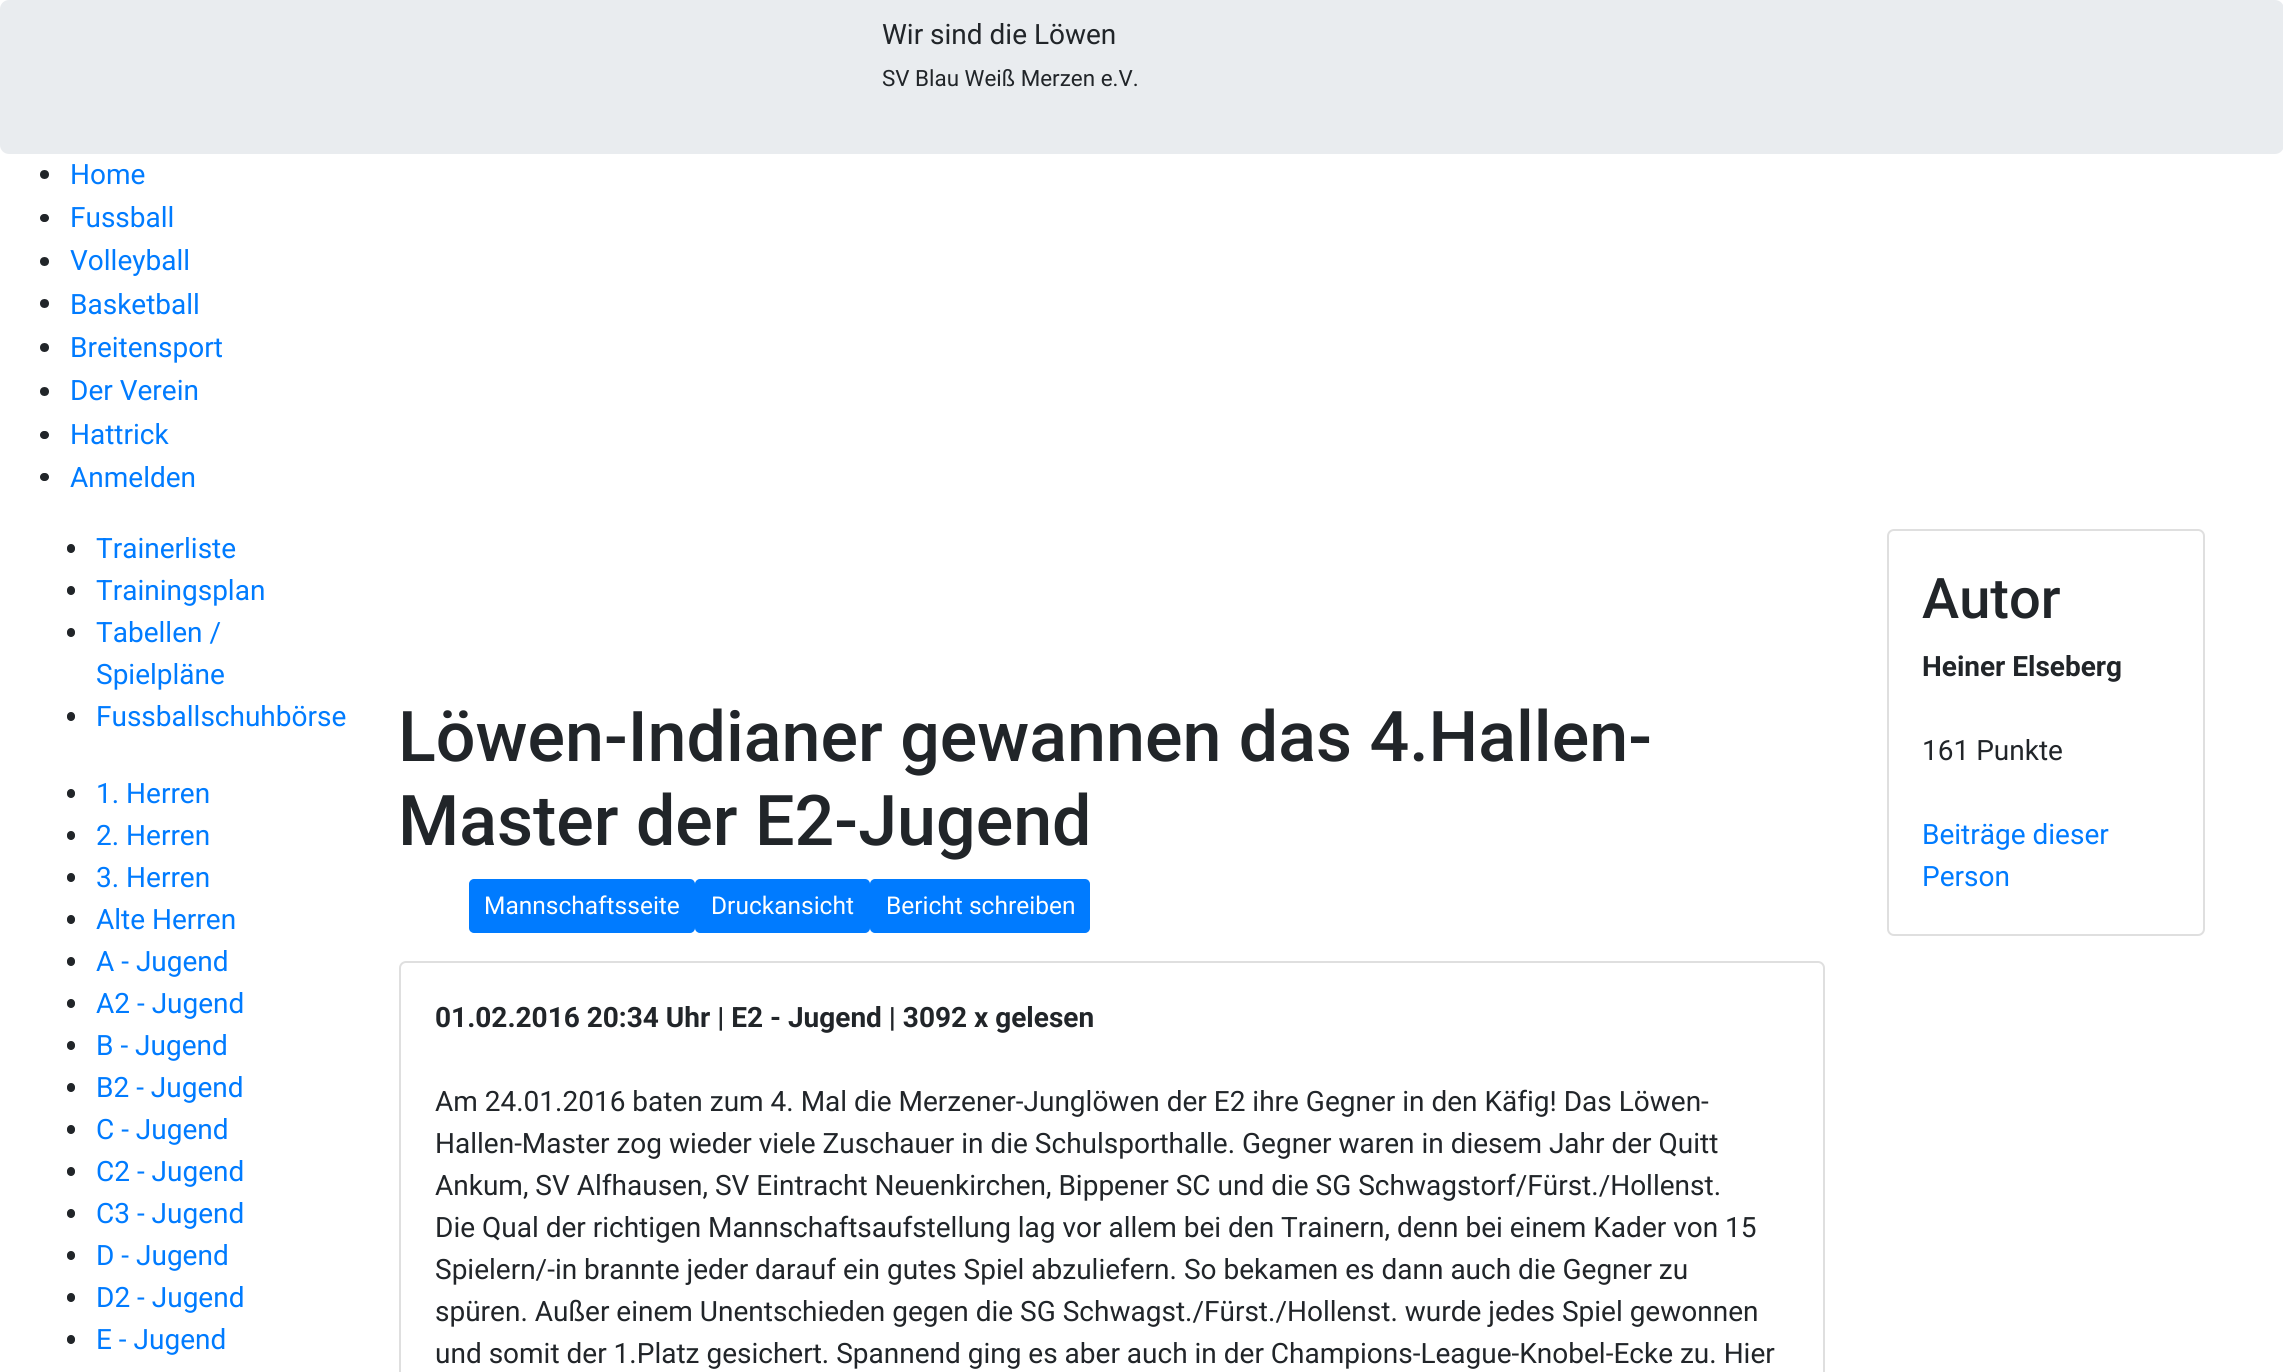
#include <cairo.h>
#include <math.h>
#include <stddef.h>


static void round_rect(cairo_t *cr, double x, double y, double w, double h, double r) {
    cairo_new_sub_path(cr);
    cairo_arc(cr, x + w - r, y + h - r, r, 0, M_PI / 2);
    cairo_arc(cr, x + r, y + h - r, r, M_PI / 2, M_PI);
    cairo_arc(cr, x + r, y + r, r, M_PI, 1.5 * M_PI);
    cairo_arc(cr, x + w - r, y + r, r, 1.5 * M_PI, 2 * M_PI);
    cairo_close_path(cr);
}

int main(void) {
    cairo_surface_t *surface = cairo_image_surface_create(CAIRO_FORMAT_RGB24, 2283, 1372);
    cairo_t *cr = cairo_create(surface);
    cairo_font_options_t *options = cairo_font_options_create();
    cairo_font_options_set_hint_metrics(options, CAIRO_HINT_METRICS_OFF);
    cairo_font_options_set_hint_style(options, CAIRO_HINT_STYLE_NONE);
    cairo_set_font_options(cr, options);
    cairo_set_miter_limit(cr, 4);
    cairo_set_source_rgb(cr, 1, 1, 1);
    cairo_paint(cr);
    cairo_set_source_rgb(cr, 0.914, 0.925, 0.937);
    round_rect(cr, 0, 0, 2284, 154, 9);
    cairo_fill(cr);
    cairo_select_font_face(cr, "Roboto", CAIRO_FONT_SLANT_NORMAL, CAIRO_FONT_WEIGHT_NORMAL);
    cairo_set_font_size(cr, 28);
    cairo_set_source_rgb(cr, 0.129, 0.145, 0.161);
    cairo_move_to(cr, 882, 44);
    cairo_show_text(cr, "Wir sind die Löwen");
    cairo_set_font_size(cr, 22.4);
    cairo_move_to(cr, 882, 86);
    cairo_show_text(cr, "SV Blau Weiß Merzen e.V.");
    cairo_new_path(cr);
    cairo_arc(cr, 44.5, 174.5, 4.5, 0, 2 * M_PI);
    cairo_fill(cr);
    cairo_set_font_size(cr, 28);
    cairo_set_source_rgb(cr, 0, 0.482, 1);
    cairo_move_to(cr, 70, 184);
    cairo_show_text(cr, "Home");
    cairo_set_source_rgb(cr, 0.129, 0.145, 0.161);
    round_rect(cr, 40, 214, 9, 8, 4);
    cairo_fill(cr);
    cairo_set_source_rgb(cr, 0, 0.482, 1);
    cairo_move_to(cr, 70, 227);
    cairo_show_text(cr, "Fussball");
    cairo_set_source_rgb(cr, 0.129, 0.145, 0.161);
    cairo_new_path(cr);
    cairo_arc(cr, 44.5, 261.5, 4.5, 0, 2 * M_PI);
    cairo_fill(cr);
    cairo_set_source_rgb(cr, 0, 0.482, 1);
    cairo_move_to(cr, 70, 270);
    cairo_show_text(cr, "Volleyball");
    cairo_set_source_rgb(cr, 0.129, 0.145, 0.161);
    cairo_new_path(cr);
    cairo_arc(cr, 44.5, 303.5, 4.5, 0, 2 * M_PI);
    cairo_fill(cr);
    cairo_set_source_rgb(cr, 0, 0.482, 1);
    cairo_move_to(cr, 70, 314);
    cairo_show_text(cr, "Basketball");
    cairo_set_source_rgb(cr, 0.129, 0.145, 0.161);
    cairo_new_path(cr);
    cairo_arc(cr, 44.5, 347.5, 4.5, 0, 2 * M_PI);
    cairo_fill(cr);
    cairo_set_source_rgb(cr, 0, 0.482, 1);
    cairo_move_to(cr, 70, 357);
    cairo_show_text(cr, "Breitensport");
    cairo_set_source_rgb(cr, 0.129, 0.145, 0.161);
    cairo_new_path(cr);
    cairo_arc(cr, 44.5, 391.5, 4.5, 0, 2 * M_PI);
    cairo_fill(cr);
    cairo_set_source_rgb(cr, 0, 0.482, 1);
    cairo_move_to(cr, 70, 400);
    cairo_show_text(cr, "Der Verein");
    cairo_set_source_rgb(cr, 0.129, 0.145, 0.161);
    round_rect(cr, 40, 431, 9, 8, 4);
    cairo_fill(cr);
    cairo_set_source_rgb(cr, 0, 0.482, 1);
    cairo_move_to(cr, 70, 444);
    cairo_show_text(cr, "Hattrick");
    cairo_set_source_rgb(cr, 0.129, 0.145, 0.161);
    round_rect(cr, 40, 473, 9, 8, 4);
    cairo_fill(cr);
    cairo_set_source_rgb(cr, 0, 0.482, 1);
    cairo_move_to(cr, 70, 487);
    cairo_show_text(cr, "Anmelden");
    cairo_set_source_rgb(cr, 0.129, 0.145, 0.161);
    round_rect(cr, 67, 544, 8, 9, 4);
    cairo_fill(cr);
    cairo_set_source_rgb(cr, 0, 0.482, 1);
    cairo_move_to(cr, 96, 558);
    cairo_show_text(cr, "Trainerliste");
    cairo_set_source_rgb(cr, 0.129, 0.145, 0.161);
    round_rect(cr, 67, 586, 8, 9, 4);
    cairo_fill(cr);
    cairo_set_source_rgb(cr, 0, 0.482, 1);
    cairo_move_to(cr, 96, 600);
    cairo_show_text(cr, "Trainingsplan");
    cairo_set_source_rgb(cr, 0.129, 0.145, 0.161);
    round_rect(cr, 67, 628, 8, 9, 4);
    cairo_fill(cr);
    cairo_set_source_rgb(cr, 0, 0.482, 1);
    cairo_move_to(cr, 96, 642);
    cairo_show_text(cr, "Tabellen /");
    cairo_move_to(cr, 96, 684);
    cairo_show_text(cr, "Spielpläne");
    cairo_set_source_rgb(cr, 0.129, 0.145, 0.161);
    round_rect(cr, 67, 712, 8, 9, 4);
    cairo_fill(cr);
    cairo_set_source_rgb(cr, 0, 0.482, 1);
    cairo_move_to(cr, 96, 726);
    cairo_show_text(cr, "Fussballschuhbörse");
    cairo_set_source_rgb(cr, 0.129, 0.145, 0.161);
    round_rect(cr, 67, 789, 8, 9, 4);
    cairo_fill(cr);
    cairo_set_source_rgb(cr, 0, 0.482, 1);
    cairo_move_to(cr, 96, 803);
    cairo_show_text(cr, "1. Herren");
    cairo_set_source_rgb(cr, 0.129, 0.145, 0.161);
    round_rect(cr, 67, 831, 8, 9, 4);
    cairo_fill(cr);
    cairo_set_source_rgb(cr, 0, 0.482, 1);
    cairo_move_to(cr, 96, 845);
    cairo_show_text(cr, "2. Herren");
    cairo_set_source_rgb(cr, 0.129, 0.145, 0.161);
    round_rect(cr, 67, 873, 8, 9, 4);
    cairo_fill(cr);
    cairo_set_source_rgb(cr, 0, 0.482, 1);
    cairo_move_to(cr, 96, 887);
    cairo_show_text(cr, "3. Herren");
    cairo_set_source_rgb(cr, 0.129, 0.145, 0.161);
    round_rect(cr, 67, 915, 8, 9, 4);
    cairo_fill(cr);
    cairo_set_source_rgb(cr, 0, 0.482, 1);
    cairo_move_to(cr, 96, 929);
    cairo_show_text(cr, "Alte Herren");
    cairo_set_source_rgb(cr, 0.129, 0.145, 0.161);
    round_rect(cr, 67, 957, 8, 9, 4);
    cairo_fill(cr);
    cairo_set_source_rgb(cr, 0, 0.482, 1);
    cairo_move_to(cr, 96, 971);
    cairo_show_text(cr, "A - Jugend");
    cairo_set_source_rgb(cr, 0.129, 0.145, 0.161);
    round_rect(cr, 67, 999, 8, 9, 4);
    cairo_fill(cr);
    cairo_set_source_rgb(cr, 0, 0.482, 1);
    cairo_move_to(cr, 96, 1013);
    cairo_show_text(cr, "A2 - Jugend");
    cairo_set_source_rgb(cr, 0.129, 0.145, 0.161);
    round_rect(cr, 67, 1041, 8, 9, 4);
    cairo_fill(cr);
    cairo_set_source_rgb(cr, 0, 0.482, 1);
    cairo_move_to(cr, 96, 1055);
    cairo_show_text(cr, "B - Jugend");
    cairo_set_source_rgb(cr, 0.129, 0.145, 0.161);
    round_rect(cr, 67, 1083, 8, 9, 4);
    cairo_fill(cr);
    cairo_set_source_rgb(cr, 0, 0.482, 1);
    cairo_move_to(cr, 96, 1097);
    cairo_show_text(cr, "B2 - Jugend");
    cairo_set_source_rgb(cr, 0.129, 0.145, 0.161);
    round_rect(cr, 67, 1125, 8, 9, 4);
    cairo_fill(cr);
    cairo_set_source_rgb(cr, 0, 0.482, 1);
    cairo_move_to(cr, 96, 1139);
    cairo_show_text(cr, "C - Jugend");
    cairo_set_source_rgb(cr, 0.129, 0.145, 0.161);
    round_rect(cr, 67, 1167, 8, 9, 4);
    cairo_fill(cr);
    cairo_set_source_rgb(cr, 0, 0.482, 1);
    cairo_move_to(cr, 96, 1181);
    cairo_show_text(cr, "C2 - Jugend");
    cairo_set_source_rgb(cr, 0.129, 0.145, 0.161);
    round_rect(cr, 67, 1209, 8, 9, 4);
    cairo_fill(cr);
    cairo_set_source_rgb(cr, 0, 0.482, 1);
    cairo_move_to(cr, 96, 1223);
    cairo_show_text(cr, "C3 - Jugend");
    cairo_set_source_rgb(cr, 0.129, 0.145, 0.161);
    round_rect(cr, 67, 1251, 8, 9, 4);
    cairo_fill(cr);
    cairo_set_source_rgb(cr, 0, 0.482, 1);
    cairo_move_to(cr, 96, 1265);
    cairo_show_text(cr, "D - Jugend");
    cairo_set_source_rgb(cr, 0.129, 0.145, 0.161);
    round_rect(cr, 67, 1293, 8, 9, 4);
    cairo_fill(cr);
    cairo_set_source_rgb(cr, 0, 0.482, 1);
    cairo_move_to(cr, 96, 1307);
    cairo_show_text(cr, "D2 - Jugend");
    cairo_set_source_rgb(cr, 0.129, 0.145, 0.161);
    round_rect(cr, 67, 1335, 8, 9, 4);
    cairo_fill(cr);
    cairo_set_source_rgb(cr, 0, 0.482, 1);
    cairo_move_to(cr, 96, 1349);
    cairo_show_text(cr, "E - Jugend");
    cairo_select_font_face(cr, "Roboto Medium", CAIRO_FONT_SLANT_NORMAL, CAIRO_FONT_WEIGHT_NORMAL);
    cairo_set_font_size(cr, 70);
    cairo_set_source_rgb(cr, 0.129, 0.145, 0.161);
    cairo_move_to(cr, 398, 761);
    cairo_show_text(cr, "Löwen-Indianer gewannen das 4.Hallen-");
    cairo_move_to(cr, 398, 845);
    cairo_show_text(cr, "Master der E2-Jugend");
    cairo_set_source_rgb(cr, 0, 0.482, 1);
    round_rect(cr, 470, 880, 224, 52, 4);
    cairo_fill_preserve(cr);
    cairo_stroke(cr);
    cairo_select_font_face(cr, "Roboto", CAIRO_FONT_SLANT_NORMAL, CAIRO_FONT_WEIGHT_NORMAL);
    cairo_set_font_size(cr, 24.5);
    cairo_set_source_rgb(cr, 1, 1, 1);
    cairo_move_to(cr, 484, 914);
    cairo_show_text(cr, "Mannschaftsseite");
    cairo_set_source_rgb(cr, 0, 0.482, 1);
    round_rect(cr, 696, 880, 173, 52, 4);
    cairo_fill_preserve(cr);
    cairo_stroke(cr);
    cairo_set_source_rgb(cr, 1, 1, 1);
    cairo_move_to(cr, 711, 914);
    cairo_show_text(cr, "Druckansicht");
    cairo_set_source_rgb(cr, 0, 0.482, 1);
    round_rect(cr, 871, 880, 218, 52, 4);
    cairo_fill_preserve(cr);
    cairo_stroke(cr);
    cairo_set_source_rgb(cr, 1, 1, 1);
    cairo_move_to(cr, 886, 914);
    cairo_show_text(cr, "Bericht schreiben");
    round_rect(cr, 400, 962, 1424, 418, 6);
    cairo_set_source_rgb(cr, 0.875, 0.875, 0.875);
    cairo_stroke(cr);
    cairo_select_font_face(cr, "Roboto", CAIRO_FONT_SLANT_NORMAL, CAIRO_FONT_WEIGHT_BOLD);
    cairo_set_font_size(cr, 28);
    cairo_set_source_rgb(cr, 0.129, 0.145, 0.161);
    cairo_move_to(cr, 435, 1027);
    cairo_show_text(cr, "01.02.2016 20:34 Uhr | E2 - Jugend | 3092 x gelesen");
    cairo_select_font_face(cr, "Roboto", CAIRO_FONT_SLANT_NORMAL, CAIRO_FONT_WEIGHT_NORMAL);
    cairo_move_to(cr, 435, 1111);
    cairo_show_text(cr, "Am 24.01.2016 baten zum 4. Mal die Merzener-Junglöwen der E2 ihre Gegner in den Käfig! Das Löwen-");
    cairo_move_to(cr, 435, 1153);
    cairo_show_text(cr, "Hallen-Master zog wieder viele Zuschauer in die Schulsporthalle. Gegner waren in diesem Jahr der Quitt");
    cairo_move_to(cr, 435, 1195);
    cairo_show_text(cr, "Ankum, SV Alfhausen, SV Eintracht Neuenkirchen, Bippener SC und die SG Schwagstorf/Fürst./Hollenst.");
    cairo_move_to(cr, 435, 1237);
    cairo_show_text(cr, "Die Qual der richtigen Mannschaftsaufstellung lag vor allem bei den Trainern, denn bei einem Kader von 15");
    cairo_move_to(cr, 435, 1279);
    cairo_show_text(cr, "Spielern/-in brannte jeder darauf ein gutes Spiel abzuliefern. So bekamen es dann auch die Gegner zu");
    cairo_move_to(cr, 435, 1321);
    cairo_show_text(cr, "spüren. Außer einem Unentschieden gegen die SG Schwagst./Fürst./Hollenst. wurde jedes Spiel gewonnen");
    cairo_move_to(cr, 435, 1363);
    cairo_show_text(cr, "und somit der 1.Platz gesichert. Spannend ging es aber auch in der Champions-League-Knobel-Ecke zu. Hier");
    round_rect(cr, 1888, 530, 316, 405, 6);
    cairo_set_source_rgb(cr, 0.875, 0.875, 0.875);
    cairo_stroke(cr);
    cairo_select_font_face(cr, "Roboto Medium", CAIRO_FONT_SLANT_NORMAL, CAIRO_FONT_WEIGHT_NORMAL);
    cairo_set_font_size(cr, 56);
    cairo_set_source_rgb(cr, 0.129, 0.145, 0.161);
    cairo_move_to(cr, 1922, 618);
    cairo_show_text(cr, "Autor");
    cairo_select_font_face(cr, "Roboto", CAIRO_FONT_SLANT_NORMAL, CAIRO_FONT_WEIGHT_BOLD);
    cairo_set_font_size(cr, 28);
    cairo_move_to(cr, 1922, 676);
    cairo_show_text(cr, "Heiner Elseberg");
    cairo_select_font_face(cr, "Roboto", CAIRO_FONT_SLANT_NORMAL, CAIRO_FONT_WEIGHT_NORMAL);
    cairo_move_to(cr, 1922, 760);
    cairo_show_text(cr, "161 Punkte");
    cairo_set_source_rgb(cr, 0, 0.482, 1);
    cairo_move_to(cr, 1922, 844);
    cairo_show_text(cr, "Beiträge dieser");
    cairo_move_to(cr, 1922, 886);
    cairo_show_text(cr, "Person");
    cairo_surface_write_to_png(surface, "page.png");
    cairo_font_options_destroy(options);
    cairo_destroy(cr);
    cairo_surface_destroy(surface);
    return 0;
}
